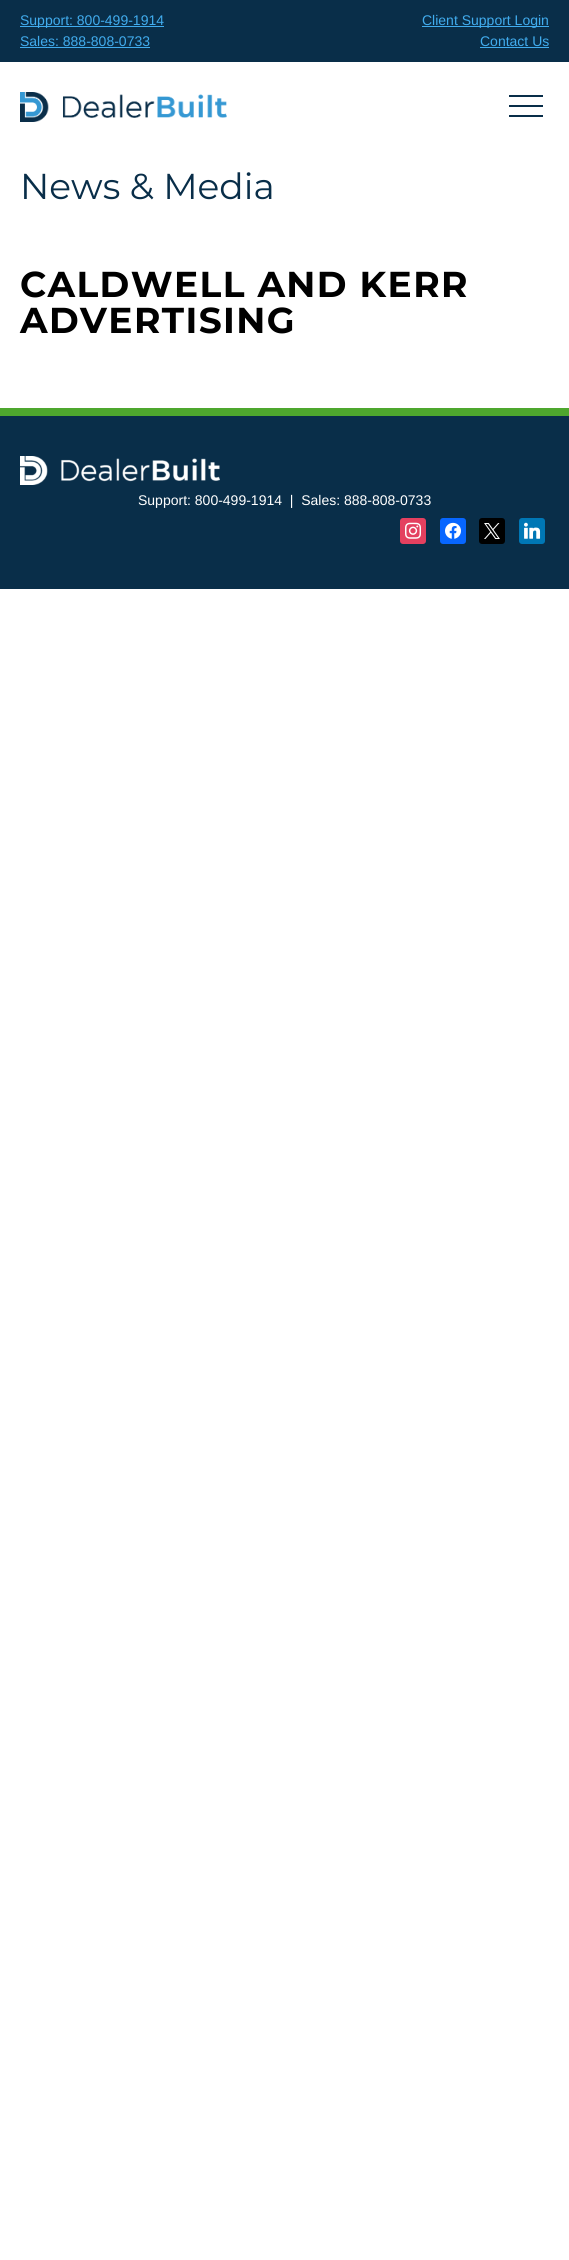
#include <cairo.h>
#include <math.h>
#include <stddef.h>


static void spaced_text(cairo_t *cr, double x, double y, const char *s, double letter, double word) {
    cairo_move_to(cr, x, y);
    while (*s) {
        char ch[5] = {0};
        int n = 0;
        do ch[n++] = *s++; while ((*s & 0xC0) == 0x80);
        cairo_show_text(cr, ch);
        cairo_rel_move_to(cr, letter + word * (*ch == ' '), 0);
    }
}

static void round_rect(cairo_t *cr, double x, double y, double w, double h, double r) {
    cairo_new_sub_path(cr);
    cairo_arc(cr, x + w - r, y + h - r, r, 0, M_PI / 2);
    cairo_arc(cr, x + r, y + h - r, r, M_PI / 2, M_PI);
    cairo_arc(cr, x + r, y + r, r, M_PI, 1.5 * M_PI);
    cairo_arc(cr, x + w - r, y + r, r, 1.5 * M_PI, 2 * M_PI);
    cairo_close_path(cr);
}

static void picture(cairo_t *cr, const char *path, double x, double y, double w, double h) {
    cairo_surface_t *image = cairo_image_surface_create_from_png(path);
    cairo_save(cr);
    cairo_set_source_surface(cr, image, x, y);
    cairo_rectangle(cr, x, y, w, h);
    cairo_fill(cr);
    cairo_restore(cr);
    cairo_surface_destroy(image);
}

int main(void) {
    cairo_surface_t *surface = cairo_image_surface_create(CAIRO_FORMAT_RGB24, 569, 2260);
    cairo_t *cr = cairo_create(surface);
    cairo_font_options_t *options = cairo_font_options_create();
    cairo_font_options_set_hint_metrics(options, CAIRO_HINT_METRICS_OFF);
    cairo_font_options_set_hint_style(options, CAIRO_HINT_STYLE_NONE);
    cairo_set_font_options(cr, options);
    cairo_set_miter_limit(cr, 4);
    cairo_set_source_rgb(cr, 1, 1, 1);
    cairo_paint(cr);
    cairo_set_source_rgb(cr, 0.039, 0.18, 0.286);
    cairo_rectangle(cr, 0, 0, 569, 62);
    cairo_fill(cr);
    cairo_set_source_rgb(cr, 0.255, 0.675, 0.933);
    cairo_rectangle(cr, 20, 26, 144, 1);
    cairo_fill(cr);
    cairo_select_font_face(cr, "Liberation Sans", CAIRO_FONT_SLANT_NORMAL, CAIRO_FONT_WEIGHT_NORMAL);
    cairo_set_font_size(cr, 14);
    cairo_move_to(cr, 20, 25);
    cairo_show_text(cr, "Support: 800-499-1914");
    cairo_move_to(cr, 20, 46);
    cairo_show_text(cr, "Sales: 888-808-0733");
    cairo_rectangle(cr, 20, 47, 130, 1);
    cairo_fill(cr);
    cairo_rectangle(cr, 422, 26, 127, 1);
    cairo_fill(cr);
    cairo_move_to(cr, 422, 25);
    cairo_show_text(cr, "Client Support Login");
    cairo_move_to(cr, 480, 46);
    cairo_show_text(cr, "Contact Us");
    cairo_rectangle(cr, 480, 47, 69, 1);
    cairo_fill(cr);
    picture(cr, "img1.png", 20, 92, 207, 30);
    cairo_set_source_rgb(cr, 0.039, 0.18, 0.286);
    cairo_rectangle(cr, 509, 95, 34, 2);
    cairo_fill(cr);
    cairo_rectangle(cr, 509, 105, 34, 2);
    cairo_fill(cr);
    cairo_rectangle(cr, 509, 115, 34, 2);
    cairo_fill(cr);
    cairo_select_font_face(cr, "Montserrat", CAIRO_FONT_SLANT_NORMAL, CAIRO_FONT_WEIGHT_NORMAL);
    cairo_set_font_size(cr, 36);
    cairo_move_to(cr, 20, 199);
    cairo_show_text(cr, "News & Media");
    cairo_select_font_face(cr, "Montserrat", CAIRO_FONT_SLANT_NORMAL, CAIRO_FONT_WEIGHT_BOLD);
    cairo_set_source_rgb(cr, 0, 0, 0);
    spaced_text(cr, 20, 297, "CALDWELL AND KERR", 1.4, 0);
    spaced_text(cr, 20, 333, "ADVERTISING", 1.4, 0);
    cairo_set_source_rgb(cr, 0.039, 0.18, 0.286);
    cairo_rectangle(cr, 0, 416, 569, 173);
    cairo_fill(cr);
    cairo_set_source_rgb(cr, 0.306, 0.655, 0.18);
    cairo_rectangle(cr, 0, 408, 569, 8);
    cairo_fill(cr);
    picture(cr, "img2.png", 20, 456, 200, 29);
    cairo_select_font_face(cr, "Liberation Sans", CAIRO_FONT_SLANT_NORMAL, CAIRO_FONT_WEIGHT_NORMAL);
    cairo_set_font_size(cr, 14);
    cairo_set_source_rgb(cr, 1, 1, 1);
    cairo_move_to(cr, 138, 505);
    cairo_show_text(cr, "Support: 800-499-1914  |  Sales: 888-808-0733");
    cairo_set_source_rgb(cr, 0.894, 0.251, 0.373);
    round_rect(cr, 400, 518, 26, 26, 3);
    cairo_fill(cr);
    picture(cr, "img3.png", 405, 522, 16, 17);
    cairo_set_source_rgb(cr, 0.031, 0.4, 1);
    round_rect(cr, 440, 518, 26, 26, 3);
    cairo_fill(cr);
    picture(cr, "img4.png", 445, 522, 16, 17);
    cairo_set_source_rgb(cr, 0, 0, 0);
    round_rect(cr, 479, 518, 26, 26, 3);
    cairo_fill(cr);
    picture(cr, "img5.png", 484, 523, 16, 16);
    cairo_set_source_rgb(cr, 0, 0.467, 0.71);
    round_rect(cr, 519, 518, 26, 26, 3);
    cairo_fill(cr);
    picture(cr, "img6.png", 524, 522, 17, 17);
    cairo_surface_write_to_png(surface, "page.png");
    cairo_font_options_destroy(options);
    cairo_destroy(cr);
    cairo_surface_destroy(surface);
    return 0;
}
